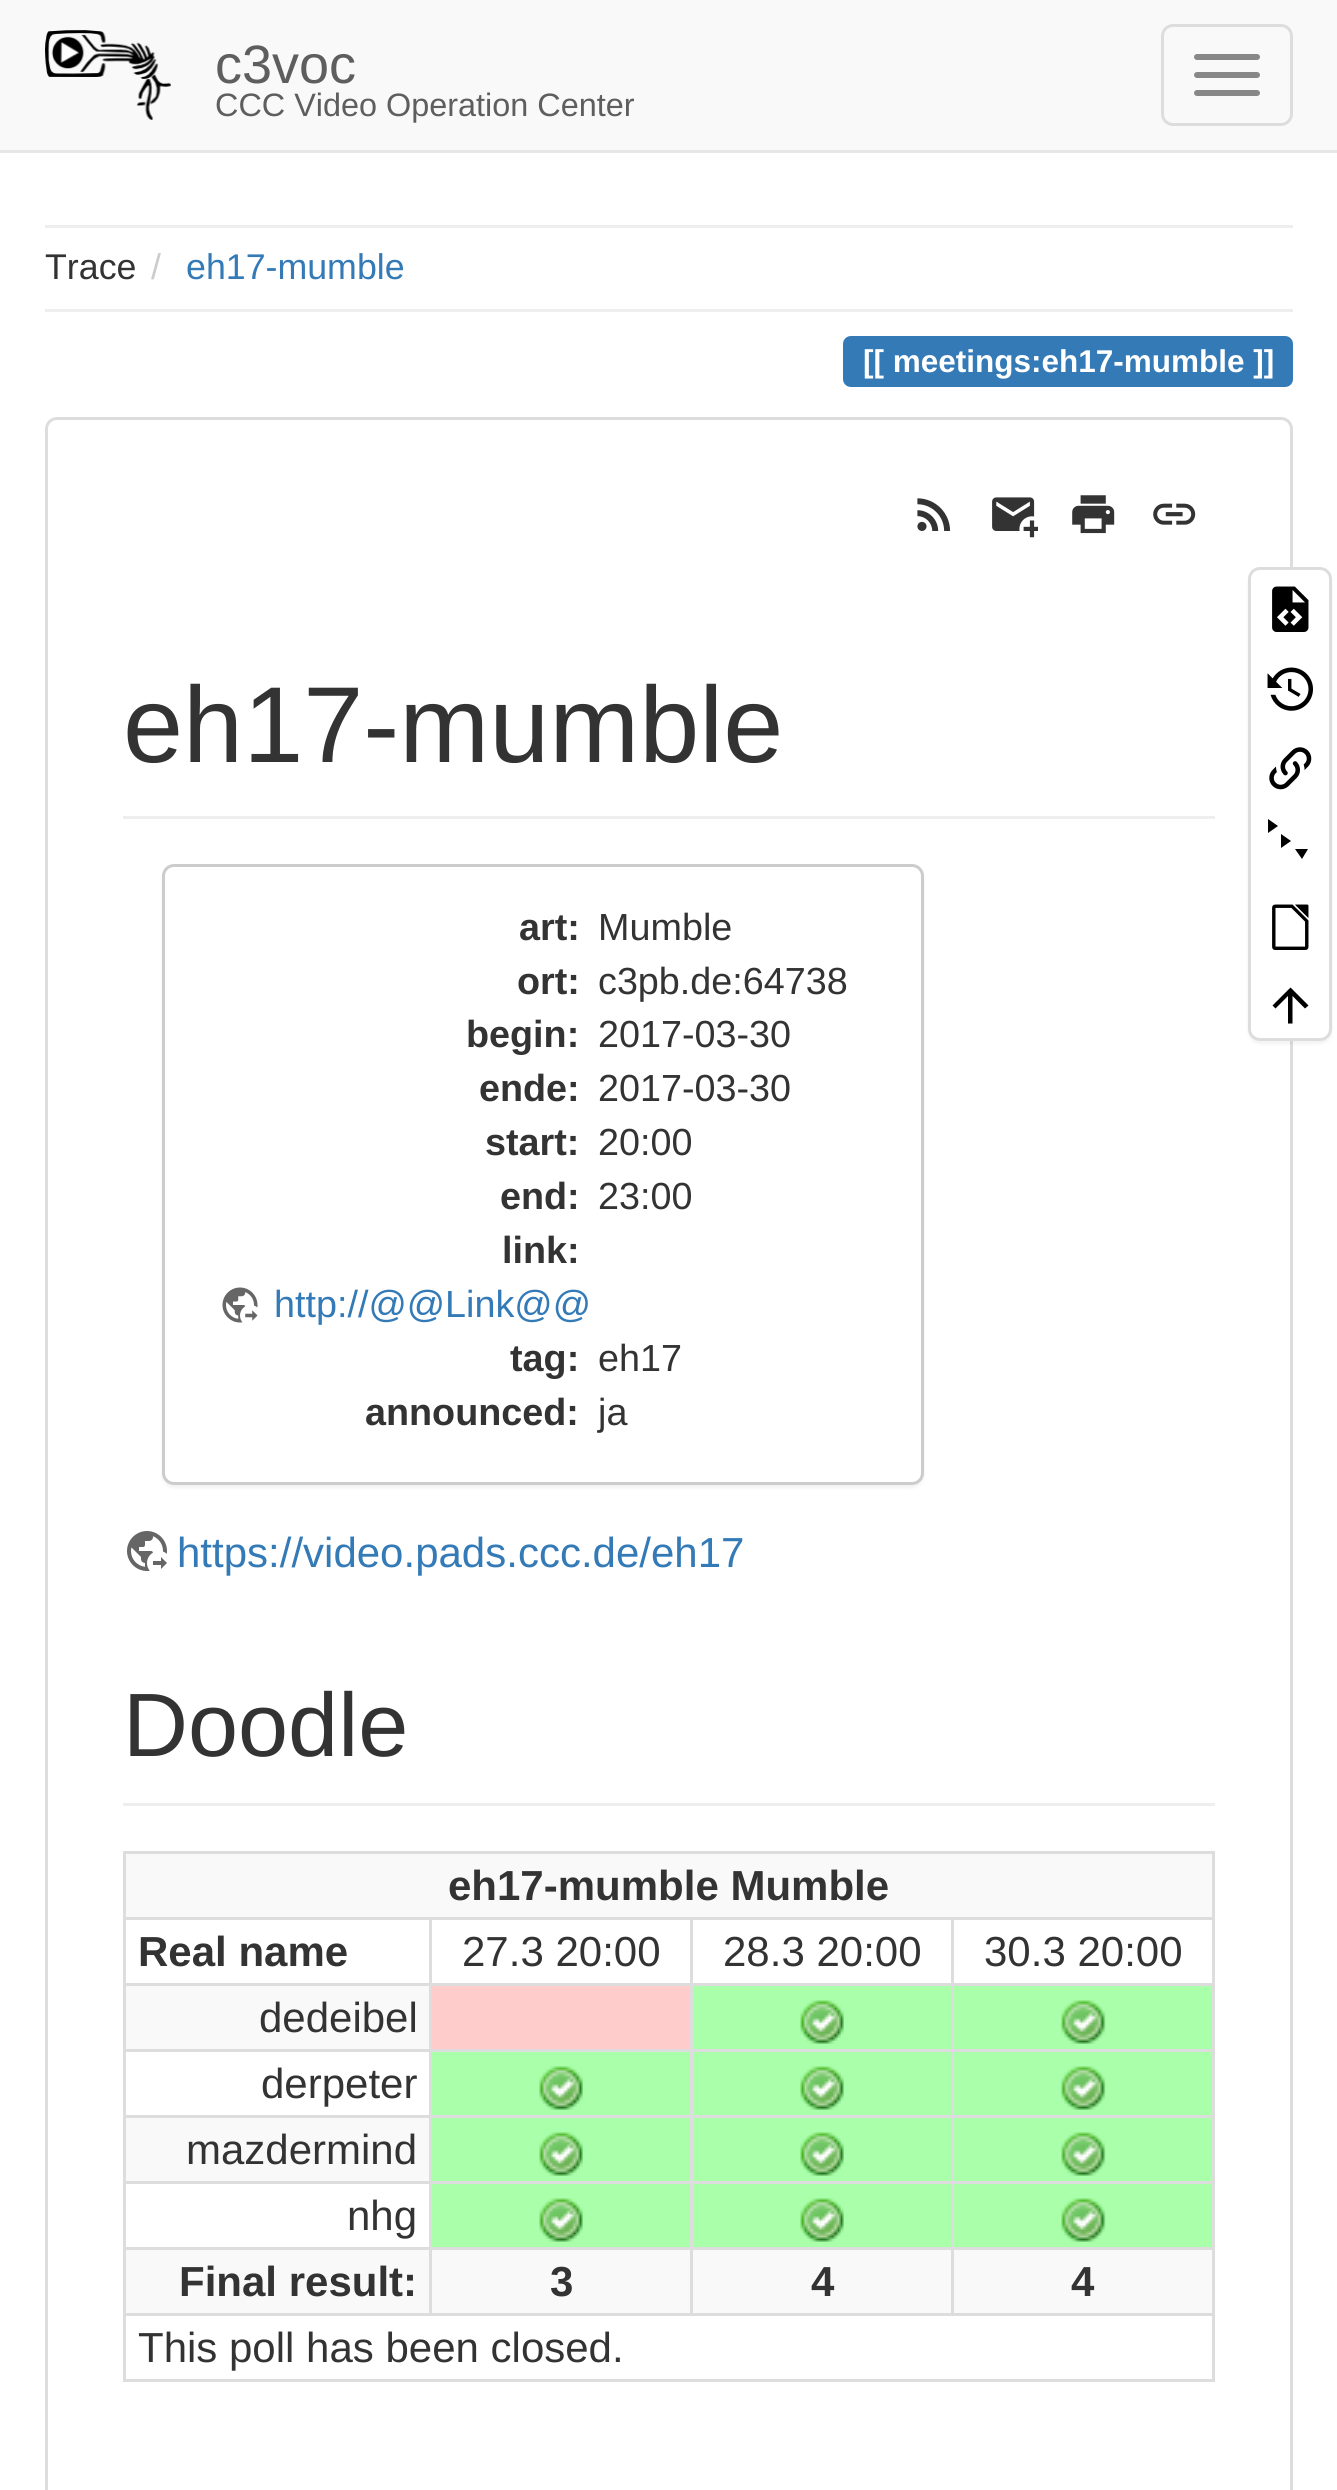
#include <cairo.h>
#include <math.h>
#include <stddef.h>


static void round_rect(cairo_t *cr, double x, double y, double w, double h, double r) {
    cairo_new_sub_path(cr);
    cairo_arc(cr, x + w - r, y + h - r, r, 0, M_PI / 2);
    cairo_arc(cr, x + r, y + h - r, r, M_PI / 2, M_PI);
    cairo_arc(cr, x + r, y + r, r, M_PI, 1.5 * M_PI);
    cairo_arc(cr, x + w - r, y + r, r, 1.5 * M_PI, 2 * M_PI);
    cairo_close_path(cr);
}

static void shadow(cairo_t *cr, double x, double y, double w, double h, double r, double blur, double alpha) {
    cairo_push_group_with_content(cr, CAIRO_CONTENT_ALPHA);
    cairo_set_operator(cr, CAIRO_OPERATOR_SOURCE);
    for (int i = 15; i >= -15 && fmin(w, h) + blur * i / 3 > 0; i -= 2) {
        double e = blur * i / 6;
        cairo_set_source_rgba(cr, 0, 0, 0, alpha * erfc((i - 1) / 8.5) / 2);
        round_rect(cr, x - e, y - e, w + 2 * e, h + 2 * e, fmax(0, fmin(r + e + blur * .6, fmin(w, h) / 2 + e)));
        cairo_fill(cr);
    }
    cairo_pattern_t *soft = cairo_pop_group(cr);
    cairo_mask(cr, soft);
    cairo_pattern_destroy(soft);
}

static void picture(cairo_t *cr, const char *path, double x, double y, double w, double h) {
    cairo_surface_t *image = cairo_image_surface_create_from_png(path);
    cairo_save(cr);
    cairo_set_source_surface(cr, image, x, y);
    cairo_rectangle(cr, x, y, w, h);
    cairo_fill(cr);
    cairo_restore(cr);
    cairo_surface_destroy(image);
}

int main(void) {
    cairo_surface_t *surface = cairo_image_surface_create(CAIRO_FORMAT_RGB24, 1337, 2490);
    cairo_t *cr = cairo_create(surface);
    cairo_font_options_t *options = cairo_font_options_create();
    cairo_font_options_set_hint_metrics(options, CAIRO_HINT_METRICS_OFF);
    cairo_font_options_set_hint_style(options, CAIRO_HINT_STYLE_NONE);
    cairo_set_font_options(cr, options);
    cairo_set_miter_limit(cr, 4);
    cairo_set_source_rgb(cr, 1, 1, 1);
    cairo_paint(cr);
    cairo_set_source_rgb(cr, 0.973, 0.973, 0.973);
    cairo_rectangle(cr, 0, 0, 1337, 150);
    cairo_fill(cr);
    cairo_set_source_rgb(cr, 0.906, 0.906, 0.906);
    cairo_rectangle(cr, 0, 150, 1337, 3);
    cairo_fill(cr);
    picture(cr, "img1.png", 45, 30, 126, 90);
    cairo_select_font_face(cr, "Liberation Sans", CAIRO_FONT_SLANT_NORMAL, CAIRO_FONT_WEIGHT_NORMAL);
    cairo_set_font_size(cr, 54);
    cairo_set_source_rgb(cr, 0.369, 0.369, 0.369);
    cairo_move_to(cr, 215, 83);
    cairo_show_text(cr, "c3voc");
    cairo_set_font_size(cr, 32.4);
    cairo_move_to(cr, 215, 116);
    cairo_show_text(cr, "CCC Video Operation Center");
    round_rect(cr, 1162.5, 25.5, 129, 99, 10.5);
    cairo_set_source_rgb(cr, 0.867, 0.867, 0.867);
    cairo_set_line_width(cr, 3);
    cairo_stroke(cr);
    cairo_set_source_rgb(cr, 0.533, 0.533, 0.533);
    round_rect(cr, 1194, 54, 66, 6, 3);
    cairo_fill(cr);
    round_rect(cr, 1194, 72, 66, 6, 3);
    cairo_fill(cr);
    round_rect(cr, 1194, 90, 66, 6, 3);
    cairo_fill(cr);
    cairo_set_source_rgb(cr, 0.933, 0.933, 0.933);
    cairo_rectangle(cr, 45, 225, 1248, 3);
    cairo_fill(cr);
    cairo_set_font_size(cr, 35.75);
    cairo_set_source_rgb(cr, 0.2, 0.2, 0.2);
    cairo_move_to(cr, 45, 279);
    cairo_show_text(cr, "Trace");
    cairo_set_source_rgb(cr, 0.8, 0.8, 0.8);
    cairo_move_to(cr, 151, 279);
    cairo_show_text(cr, "/");
    cairo_set_source_rgb(cr, 0.2, 0.478, 0.718);
    cairo_move_to(cr, 186, 279);
    cairo_show_text(cr, "eh17-mumble");
    cairo_set_source_rgb(cr, 0.933, 0.933, 0.933);
    cairo_rectangle(cr, 45, 309, 1248, 3);
    cairo_fill(cr);
    cairo_set_source_rgb(cr, 0.2, 0.478, 0.718);
    cairo_new_path(cr);
    cairo_move_to(cr, 851, 336);
    cairo_line_to(cr, 894, 336);
    cairo_line_to(cr, 894, 387);
    cairo_line_to(cr, 851, 387);
    cairo_curve_to(cr, 846.5, 387, 843, 383.5, 843, 379);
    cairo_line_to(cr, 843, 344);
    cairo_curve_to(cr, 843, 339.5, 846.5, 336, 851, 336);
    cairo_close_path(cr);
    cairo_fill(cr);
    cairo_rectangle(cr, 894, 336, 351, 51);
    cairo_fill(cr);
    cairo_new_path(cr);
    cairo_move_to(cr, 1245, 336);
    cairo_line_to(cr, 1285, 336);
    cairo_curve_to(cr, 1289.5, 336, 1293, 339.5, 1293, 344);
    cairo_line_to(cr, 1293, 379);
    cairo_curve_to(cr, 1293, 383.5, 1289.5, 387, 1285, 387);
    cairo_line_to(cr, 1245, 387);
    cairo_close_path(cr);
    cairo_fill(cr);
    cairo_select_font_face(cr, "Liberation Sans", CAIRO_FONT_SLANT_NORMAL, CAIRO_FONT_WEIGHT_BOLD);
    cairo_set_font_size(cr, 31.5);
    cairo_set_source_rgb(cr, 1, 1, 1);
    cairo_move_to(cr, 863, 372);
    cairo_show_text(cr, "[[ meetings:eh17-mumble ]]");
    round_rect(cr, 46.5, 418.5, 1245, 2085, 10.5);
    cairo_set_source_rgb(cr, 0.867, 0.867, 0.867);
    cairo_stroke(cr);
    picture(cr, "img2.png", 917, 498, 34, 33);
    picture(cr, "img3.png", 992, 497, 46, 41);
    picture(cr, "img4.png", 1072, 495, 43, 39);
    picture(cr, "img5.png", 1153, 503, 43, 22);
    cairo_set_source_rgb(cr, 0.933, 0.933, 0.933);
    cairo_rectangle(cr, 123, 816, 1092, 3);
    cairo_fill(cr);
    cairo_select_font_face(cr, "Liberation Sans", CAIRO_FONT_SLANT_NORMAL, CAIRO_FONT_WEIGHT_NORMAL);
    cairo_set_font_size(cr, 108);
    cairo_set_source_rgb(cr, 0.2, 0.2, 0.2);
    cairo_move_to(cr, 123, 762);
    cairo_show_text(cr, "eh17-mumble");
    cairo_set_source_rgb(cr, 0, 0, 0);
    shadow(cr, 162, 867, 762, 621, 12, 1.5, 0.05);
    cairo_set_source_rgb(cr, 1, 1, 1);
    round_rect(cr, 163.5, 865.5, 759, 618, 10.5);
    cairo_fill_preserve(cr);
    cairo_set_source_rgb(cr, 0.8, 0.8, 0.8);
    cairo_stroke(cr);
    cairo_select_font_face(cr, "Liberation Sans", CAIRO_FONT_SLANT_NORMAL, CAIRO_FONT_WEIGHT_BOLD);
    cairo_set_font_size(cr, 37.75);
    cairo_set_source_rgb(cr, 0.2, 0.2, 0.2);
    cairo_move_to(cr, 519, 940);
    cairo_show_text(cr, "art:");
    cairo_select_font_face(cr, "Liberation Sans", CAIRO_FONT_SLANT_NORMAL, CAIRO_FONT_WEIGHT_NORMAL);
    cairo_move_to(cr, 598, 940);
    cairo_show_text(cr, "Mumble");
    cairo_select_font_face(cr, "Liberation Sans", CAIRO_FONT_SLANT_NORMAL, CAIRO_FONT_WEIGHT_BOLD);
    cairo_move_to(cr, 517, 994);
    cairo_show_text(cr, "ort:");
    cairo_select_font_face(cr, "Liberation Sans", CAIRO_FONT_SLANT_NORMAL, CAIRO_FONT_WEIGHT_NORMAL);
    cairo_move_to(cr, 598, 994);
    cairo_show_text(cr, "c3pb.de:64738");
    cairo_select_font_face(cr, "Liberation Sans", CAIRO_FONT_SLANT_NORMAL, CAIRO_FONT_WEIGHT_BOLD);
    cairo_move_to(cr, 466, 1047);
    cairo_show_text(cr, "begin:");
    cairo_select_font_face(cr, "Liberation Sans", CAIRO_FONT_SLANT_NORMAL, CAIRO_FONT_WEIGHT_NORMAL);
    cairo_move_to(cr, 598, 1047);
    cairo_show_text(cr, "2017-03-30");
    cairo_select_font_face(cr, "Liberation Sans", CAIRO_FONT_SLANT_NORMAL, CAIRO_FONT_WEIGHT_BOLD);
    cairo_move_to(cr, 479, 1101);
    cairo_show_text(cr, "ende:");
    cairo_select_font_face(cr, "Liberation Sans", CAIRO_FONT_SLANT_NORMAL, CAIRO_FONT_WEIGHT_NORMAL);
    cairo_move_to(cr, 598, 1101);
    cairo_show_text(cr, "2017-03-30");
    cairo_select_font_face(cr, "Liberation Sans", CAIRO_FONT_SLANT_NORMAL, CAIRO_FONT_WEIGHT_BOLD);
    cairo_move_to(cr, 485, 1155);
    cairo_show_text(cr, "start:");
    cairo_select_font_face(cr, "Liberation Sans", CAIRO_FONT_SLANT_NORMAL, CAIRO_FONT_WEIGHT_NORMAL);
    cairo_move_to(cr, 598, 1155);
    cairo_show_text(cr, "20:00");
    cairo_select_font_face(cr, "Liberation Sans", CAIRO_FONT_SLANT_NORMAL, CAIRO_FONT_WEIGHT_BOLD);
    cairo_move_to(cr, 500, 1209);
    cairo_show_text(cr, "end:");
    cairo_select_font_face(cr, "Liberation Sans", CAIRO_FONT_SLANT_NORMAL, CAIRO_FONT_WEIGHT_NORMAL);
    cairo_move_to(cr, 598, 1209);
    cairo_show_text(cr, "23:00");
    cairo_select_font_face(cr, "Liberation Sans", CAIRO_FONT_SLANT_NORMAL, CAIRO_FONT_WEIGHT_BOLD);
    cairo_move_to(cr, 502, 1263);
    cairo_show_text(cr, "link:");
    picture(cr, "img6.png", 222, 1287, 36, 36);
    cairo_select_font_face(cr, "Liberation Sans", CAIRO_FONT_SLANT_NORMAL, CAIRO_FONT_WEIGHT_NORMAL);
    cairo_set_source_rgb(cr, 0.2, 0.478, 0.718);
    cairo_move_to(cr, 274, 1317);
    cairo_show_text(cr, "http://@@Link@@");
    cairo_select_font_face(cr, "Liberation Sans", CAIRO_FONT_SLANT_NORMAL, CAIRO_FONT_WEIGHT_BOLD);
    cairo_set_source_rgb(cr, 0.2, 0.2, 0.2);
    cairo_move_to(cr, 510, 1371);
    cairo_show_text(cr, "tag:");
    cairo_select_font_face(cr, "Liberation Sans", CAIRO_FONT_SLANT_NORMAL, CAIRO_FONT_WEIGHT_NORMAL);
    cairo_move_to(cr, 598, 1371);
    cairo_show_text(cr, "eh17");
    cairo_select_font_face(cr, "Liberation Sans", CAIRO_FONT_SLANT_NORMAL, CAIRO_FONT_WEIGHT_BOLD);
    cairo_move_to(cr, 365, 1425);
    cairo_show_text(cr, "announced:");
    cairo_select_font_face(cr, "Liberation Sans", CAIRO_FONT_SLANT_NORMAL, CAIRO_FONT_WEIGHT_NORMAL);
    cairo_move_to(cr, 598, 1425);
    cairo_show_text(cr, "ja");
    picture(cr, "img7.png", 127, 1531, 40, 40);
    cairo_set_font_size(cr, 42);
    cairo_set_source_rgb(cr, 0.2, 0.478, 0.718);
    cairo_move_to(cr, 177, 1567);
    cairo_show_text(cr, "https://video.pads.ccc.de/eh17");
    cairo_set_source_rgb(cr, 0.933, 0.933, 0.933);
    cairo_rectangle(cr, 123, 1803, 1092, 3);
    cairo_fill(cr);
    cairo_set_font_size(cr, 90);
    cairo_set_source_rgb(cr, 0.2, 0.2, 0.2);
    cairo_move_to(cr, 123, 1756);
    cairo_show_text(cr, "Doodle");
    cairo_set_source_rgb(cr, 0.867, 0.867, 0.867);
    cairo_rectangle(cr, 123, 1851, 1092, 3);
    cairo_fill(cr);
    cairo_rectangle(cr, 1212, 1851, 3, 531);
    cairo_fill(cr);
    cairo_rectangle(cr, 123, 2379, 1092, 3);
    cairo_fill(cr);
    cairo_rectangle(cr, 123, 1851, 3, 531);
    cairo_fill(cr);
    cairo_set_source_rgb(cr, 0.976, 0.976, 0.976);
    cairo_rectangle(cr, 126, 1854, 1086, 63);
    cairo_fill(cr);
    cairo_select_font_face(cr, "Liberation Sans", CAIRO_FONT_SLANT_NORMAL, CAIRO_FONT_WEIGHT_BOLD);
    cairo_set_font_size(cr, 42);
    cairo_set_source_rgb(cr, 0.2, 0.2, 0.2);
    cairo_move_to(cr, 448, 1900);
    cairo_show_text(cr, "eh17-mumble Mumble");
    cairo_set_source_rgb(cr, 0.867, 0.867, 0.867);
    cairo_rectangle(cr, 951, 1917, 264, 3);
    cairo_fill(cr);
    cairo_rectangle(cr, 951, 1983, 264, 3);
    cairo_fill(cr);
    cairo_rectangle(cr, 951, 2049, 264, 3);
    cairo_fill(cr);
    cairo_rectangle(cr, 951, 2115, 264, 3);
    cairo_fill(cr);
    cairo_rectangle(cr, 951, 2181, 264, 3);
    cairo_fill(cr);
    cairo_rectangle(cr, 951, 2247, 264, 3);
    cairo_fill(cr);
    cairo_set_source_rgb(cr, 0.976, 0.976, 0.976);
    cairo_rectangle(cr, 126, 2250, 1086, 63);
    cairo_fill(cr);
    cairo_set_source_rgb(cr, 0.867, 0.867, 0.867);
    cairo_rectangle(cr, 123, 2313, 1092, 3);
    cairo_fill(cr);
    cairo_rectangle(cr, 951, 2247, 3, 69);
    cairo_fill(cr);
    cairo_rectangle(cr, 690, 2247, 264, 3);
    cairo_fill(cr);
    cairo_rectangle(cr, 951, 2181, 3, 69);
    cairo_fill(cr);
    cairo_rectangle(cr, 690, 2181, 264, 3);
    cairo_fill(cr);
    cairo_rectangle(cr, 951, 2115, 3, 69);
    cairo_fill(cr);
    cairo_rectangle(cr, 690, 2115, 264, 3);
    cairo_fill(cr);
    cairo_rectangle(cr, 951, 2049, 3, 69);
    cairo_fill(cr);
    cairo_rectangle(cr, 690, 2049, 264, 3);
    cairo_fill(cr);
    cairo_rectangle(cr, 951, 1983, 3, 69);
    cairo_fill(cr);
    cairo_rectangle(cr, 690, 1983, 264, 3);
    cairo_fill(cr);
    cairo_rectangle(cr, 951, 1917, 3, 69);
    cairo_fill(cr);
    cairo_rectangle(cr, 690, 1917, 264, 3);
    cairo_fill(cr);
    cairo_rectangle(cr, 690, 2247, 3, 69);
    cairo_fill(cr);
    cairo_rectangle(cr, 429, 2247, 264, 3);
    cairo_fill(cr);
    cairo_rectangle(cr, 690, 2181, 3, 69);
    cairo_fill(cr);
    cairo_rectangle(cr, 429, 2181, 264, 3);
    cairo_fill(cr);
    cairo_rectangle(cr, 690, 2115, 3, 69);
    cairo_fill(cr);
    cairo_rectangle(cr, 429, 2115, 264, 3);
    cairo_fill(cr);
    cairo_rectangle(cr, 690, 2049, 3, 69);
    cairo_fill(cr);
    cairo_rectangle(cr, 429, 2049, 264, 3);
    cairo_fill(cr);
    cairo_rectangle(cr, 690, 1983, 3, 69);
    cairo_fill(cr);
    cairo_rectangle(cr, 429, 1983, 264, 3);
    cairo_fill(cr);
    cairo_rectangle(cr, 690, 1917, 3, 69);
    cairo_fill(cr);
    cairo_rectangle(cr, 429, 1917, 264, 3);
    cairo_fill(cr);
    cairo_rectangle(cr, 429, 2247, 3, 69);
    cairo_fill(cr);
    cairo_rectangle(cr, 123, 2247, 309, 3);
    cairo_fill(cr);
    cairo_rectangle(cr, 429, 2181, 3, 69);
    cairo_fill(cr);
    cairo_rectangle(cr, 123, 2181, 309, 3);
    cairo_fill(cr);
    cairo_rectangle(cr, 429, 2115, 3, 69);
    cairo_fill(cr);
    cairo_rectangle(cr, 123, 2115, 309, 3);
    cairo_fill(cr);
    cairo_rectangle(cr, 429, 2049, 3, 69);
    cairo_fill(cr);
    cairo_rectangle(cr, 123, 2049, 309, 3);
    cairo_fill(cr);
    cairo_rectangle(cr, 429, 1983, 3, 69);
    cairo_fill(cr);
    cairo_rectangle(cr, 123, 1983, 309, 3);
    cairo_fill(cr);
    cairo_rectangle(cr, 429, 1917, 3, 69);
    cairo_fill(cr);
    cairo_rectangle(cr, 123, 1917, 309, 3);
    cairo_fill(cr);
    cairo_set_source_rgb(cr, 0.2, 0.2, 0.2);
    cairo_move_to(cr, 138, 1966);
    cairo_show_text(cr, "Real name");
    cairo_select_font_face(cr, "Liberation Sans", CAIRO_FONT_SLANT_NORMAL, CAIRO_FONT_WEIGHT_NORMAL);
    cairo_move_to(cr, 462, 1966);
    cairo_show_text(cr, "27.3 20:00");
    cairo_move_to(cr, 723, 1966);
    cairo_show_text(cr, "28.3 20:00");
    cairo_move_to(cr, 984, 1966);
    cairo_show_text(cr, "30.3 20:00");
    cairo_set_source_rgb(cr, 0.976, 0.976, 0.976);
    cairo_rectangle(cr, 126, 1986, 303, 63);
    cairo_fill(cr);
    cairo_set_source_rgb(cr, 0.2, 0.2, 0.2);
    cairo_move_to(cr, 259, 2032);
    cairo_show_text(cr, "dedeibel");
    cairo_set_source_rgb(cr, 1, 0.8, 0.8);
    cairo_rectangle(cr, 432, 1986, 258, 63);
    cairo_fill(cr);
    cairo_set_source_rgb(cr, 0.667, 1, 0.667);
    cairo_rectangle(cr, 693, 1986, 258, 63);
    cairo_fill(cr);
    picture(cr, "img8.png", 800, 2000, 44, 44);
    cairo_rectangle(cr, 954, 1986, 258, 63);
    cairo_fill(cr);
    picture(cr, "img9.png", 1061, 2000, 45, 44);
    cairo_set_source_rgb(cr, 0.2, 0.2, 0.2);
    cairo_move_to(cr, 261, 2098);
    cairo_show_text(cr, "derpeter");
    cairo_set_source_rgb(cr, 0.667, 1, 0.667);
    cairo_rectangle(cr, 432, 2052, 258, 63);
    cairo_fill(cr);
    picture(cr, "img8.png", 539, 2066, 44, 44);
    cairo_rectangle(cr, 693, 2052, 258, 63);
    cairo_fill(cr);
    picture(cr, "img8.png", 800, 2066, 44, 44);
    cairo_rectangle(cr, 954, 2052, 258, 63);
    cairo_fill(cr);
    picture(cr, "img9.png", 1061, 2066, 45, 44);
    cairo_set_source_rgb(cr, 0.976, 0.976, 0.976);
    cairo_rectangle(cr, 126, 2118, 303, 63);
    cairo_fill(cr);
    cairo_set_source_rgb(cr, 0.2, 0.2, 0.2);
    cairo_move_to(cr, 186, 2164);
    cairo_show_text(cr, "mazdermind");
    cairo_set_source_rgb(cr, 0.667, 1, 0.667);
    cairo_rectangle(cr, 432, 2118, 258, 63);
    cairo_fill(cr);
    picture(cr, "img8.png", 539, 2132, 44, 44);
    cairo_rectangle(cr, 693, 2118, 258, 63);
    cairo_fill(cr);
    picture(cr, "img8.png", 800, 2132, 44, 44);
    cairo_rectangle(cr, 954, 2118, 258, 63);
    cairo_fill(cr);
    picture(cr, "img9.png", 1061, 2132, 45, 44);
    cairo_set_source_rgb(cr, 0.2, 0.2, 0.2);
    cairo_move_to(cr, 347, 2230);
    cairo_show_text(cr, "nhg");
    cairo_set_source_rgb(cr, 0.667, 1, 0.667);
    cairo_rectangle(cr, 432, 2184, 258, 63);
    cairo_fill(cr);
    picture(cr, "img8.png", 539, 2198, 44, 44);
    cairo_rectangle(cr, 693, 2184, 258, 63);
    cairo_fill(cr);
    picture(cr, "img8.png", 800, 2198, 44, 44);
    cairo_rectangle(cr, 954, 2184, 258, 63);
    cairo_fill(cr);
    picture(cr, "img9.png", 1061, 2198, 45, 44);
    cairo_select_font_face(cr, "Liberation Sans", CAIRO_FONT_SLANT_NORMAL, CAIRO_FONT_WEIGHT_BOLD);
    cairo_set_source_rgb(cr, 0.2, 0.2, 0.2);
    cairo_move_to(cr, 179, 2296);
    cairo_show_text(cr, "Final result:");
    cairo_move_to(cr, 550, 2296);
    cairo_show_text(cr, "3");
    cairo_move_to(cr, 811, 2296);
    cairo_show_text(cr, "4");
    cairo_move_to(cr, 1071, 2296);
    cairo_show_text(cr, "4");
    cairo_select_font_face(cr, "Liberation Sans", CAIRO_FONT_SLANT_NORMAL, CAIRO_FONT_WEIGHT_NORMAL);
    cairo_move_to(cr, 138, 2362);
    cairo_show_text(cr, "This poll has been closed.");
    cairo_set_source_rgb(cr, 0, 0, 0);
    shadow(cr, 1248, 570, 84, 474, 12, 1.5, 0.05);
    cairo_set_source_rgb(cr, 1, 1, 1);
    round_rect(cr, 1249.5, 568.5, 81, 471, 10.5);
    cairo_fill_preserve(cr);
    cairo_set_source_rgb(cr, 0.867, 0.867, 0.867);
    cairo_stroke(cr);
    picture(cr, "img10.png", 1272, 586, 37, 46);
    picture(cr, "img11.png", 1267, 667, 46, 44);
    picture(cr, "img12.png", 1269, 747, 43, 43);
    cairo_set_source_rgb(cr, 0, 0, 0);
    cairo_new_path(cr);
    cairo_move_to(cr, 1268, 819);
    cairo_line_to(cr, 1278, 826);
    cairo_line_to(cr, 1268, 833);
    cairo_close_path(cr);
    cairo_move_to(cr, 1281, 834);
    cairo_line_to(cr, 1291, 841);
    cairo_line_to(cr, 1281, 848);
    cairo_close_path(cr);
    cairo_move_to(cr, 1295, 849);
    cairo_line_to(cr, 1308, 849);
    cairo_line_to(cr, 1302, 859);
    cairo_close_path(cr);
    cairo_fill(cr);
    picture(cr, "img13.png", 1272, 904, 37, 46);
    cairo_new_path(cr);
    cairo_move_to(cr, 1292.5, 1023.5);
    cairo_line_to(cr, 1288, 1023.5);
    cairo_line_to(cr, 1288, 996);
    cairo_line_to(cr, 1275.5, 1008.5);
    cairo_line_to(cr, 1272.5, 1005.5);
    cairo_line_to(cr, 1290.5, 987.5);
    cairo_line_to(cr, 1308.5, 1005.5);
    cairo_line_to(cr, 1305, 1008.5);
    cairo_line_to(cr, 1292.5, 996);
    cairo_close_path(cr);
    cairo_fill(cr);
    cairo_surface_write_to_png(surface, "page.png");
    cairo_font_options_destroy(options);
    cairo_destroy(cr);
    cairo_surface_destroy(surface);
    return 0;
}
